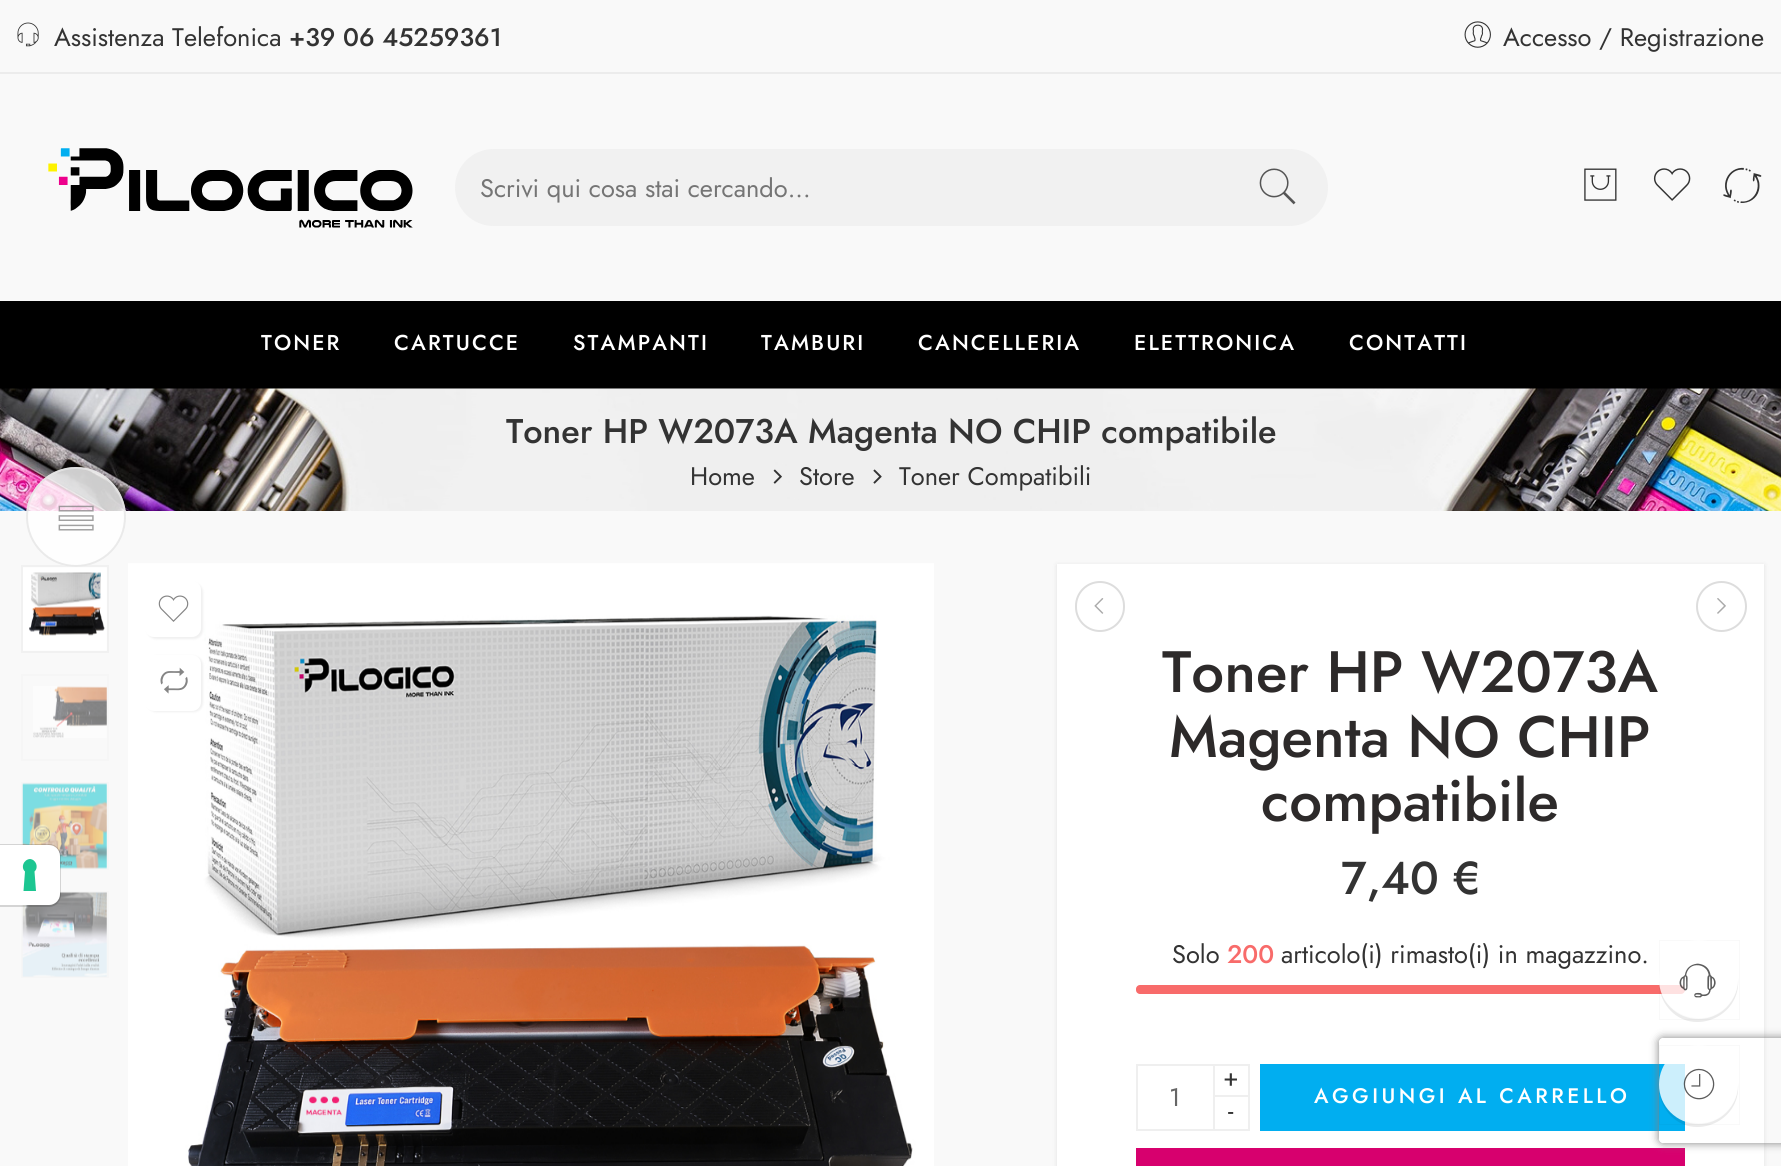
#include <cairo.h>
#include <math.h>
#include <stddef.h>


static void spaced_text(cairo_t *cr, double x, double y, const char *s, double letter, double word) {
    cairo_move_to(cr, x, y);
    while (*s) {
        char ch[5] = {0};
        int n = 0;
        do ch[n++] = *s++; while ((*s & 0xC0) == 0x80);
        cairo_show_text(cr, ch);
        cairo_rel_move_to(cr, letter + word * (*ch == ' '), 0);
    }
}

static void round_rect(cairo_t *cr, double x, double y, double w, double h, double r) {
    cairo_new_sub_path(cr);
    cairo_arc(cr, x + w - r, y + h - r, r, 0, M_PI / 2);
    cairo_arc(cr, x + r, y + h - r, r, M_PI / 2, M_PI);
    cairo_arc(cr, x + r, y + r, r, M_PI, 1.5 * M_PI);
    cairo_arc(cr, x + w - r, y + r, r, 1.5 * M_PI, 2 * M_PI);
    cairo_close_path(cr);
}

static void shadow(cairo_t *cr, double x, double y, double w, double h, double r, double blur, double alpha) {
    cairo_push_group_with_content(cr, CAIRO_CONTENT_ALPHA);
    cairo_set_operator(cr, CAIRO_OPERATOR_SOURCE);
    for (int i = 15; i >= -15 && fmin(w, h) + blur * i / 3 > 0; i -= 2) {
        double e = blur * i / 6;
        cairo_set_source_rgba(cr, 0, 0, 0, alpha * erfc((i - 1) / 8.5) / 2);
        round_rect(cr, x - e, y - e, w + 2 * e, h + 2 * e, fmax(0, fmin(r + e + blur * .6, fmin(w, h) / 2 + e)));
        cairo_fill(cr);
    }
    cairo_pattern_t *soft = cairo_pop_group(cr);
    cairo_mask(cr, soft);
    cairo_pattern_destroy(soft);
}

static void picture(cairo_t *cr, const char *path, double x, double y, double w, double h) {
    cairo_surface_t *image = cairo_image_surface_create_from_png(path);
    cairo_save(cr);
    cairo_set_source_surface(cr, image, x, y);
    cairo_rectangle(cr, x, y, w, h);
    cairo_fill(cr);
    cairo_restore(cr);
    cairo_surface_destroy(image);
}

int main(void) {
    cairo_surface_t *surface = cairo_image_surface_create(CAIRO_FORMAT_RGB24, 1781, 1166);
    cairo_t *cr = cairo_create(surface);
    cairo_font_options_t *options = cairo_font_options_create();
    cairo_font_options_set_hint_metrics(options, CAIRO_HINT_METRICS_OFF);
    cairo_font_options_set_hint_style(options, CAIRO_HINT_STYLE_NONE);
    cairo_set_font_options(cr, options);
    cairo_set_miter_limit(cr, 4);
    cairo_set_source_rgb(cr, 0.973, 0.973, 0.973);
    cairo_paint(cr);
    cairo_rectangle(cr, 22, 783, 86, 86);
    cairo_set_source_rgb(cr, 0.961, 0.961, 0.961);
    cairo_stroke(cr);
    picture(cr, "img13.png", 22, 783, 85, 86);
    cairo_rectangle(cr, 22, 892, 86, 85);
    cairo_stroke(cr);
    picture(cr, "img14.png", 22, 892, 85, 85);
    cairo_new_path(cr);
    cairo_move_to(cr, -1, 845);
    cairo_line_to(cr, 49, 845);
    cairo_curve_to(cr, 55, 845, 60, 850, 60, 856);
    cairo_line_to(cr, 60, 895);
    cairo_curve_to(cr, 60, 901, 55, 906, 49, 906);
    cairo_line_to(cr, -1, 906);
    cairo_close_path(cr);
    cairo_set_source_rgba(cr, 0, 0, 0, 0.15);
    cairo_stroke(cr);
    cairo_set_source_rgb(cr, 1, 1, 1);
    cairo_new_path(cr);
    cairo_move_to(cr, 0, 845);
    cairo_line_to(cr, 49, 845);
    cairo_curve_to(cr, 55, 845, 60, 850, 60, 856);
    cairo_line_to(cr, 60, 894);
    cairo_curve_to(cr, 60, 900, 55, 905, 49, 905);
    cairo_line_to(cr, 0, 905);
    cairo_close_path(cr);
    cairo_fill(cr);
    cairo_set_source_rgb(cr, 0.11, 0.776, 0.569);
    cairo_set_fill_rule(cr, CAIRO_FILL_RULE_EVEN_ODD);
    cairo_new_path(cr);
    cairo_move_to(cr, 30, 859);
    cairo_curve_to(cr, 36, 859.5, 39, 867.5, 34.5, 871.5);
    cairo_line_to(cr, 36, 891);
    cairo_line_to(cr, 23.5, 891);
    cairo_line_to(cr, 25, 871.5);
    cairo_curve_to(cr, 20.5, 867.5, 23.5, 859.5, 30, 859);
    cairo_close_path(cr);
    cairo_fill(cr);
    cairo_set_source_rgb(cr, 0.925, 0.925, 0.925);
    cairo_rectangle(cr, 0, 72, 1781, 2);
    cairo_fill(cr);
    picture(cr, "img1.png", 17, 22, 22, 25);
    cairo_select_font_face(cr, "Jost", CAIRO_FONT_SLANT_NORMAL, CAIRO_FONT_WEIGHT_NORMAL);
    cairo_set_font_size(cr, 25.4);
    cairo_set_source_rgb(cr, 0.2, 0.2, 0.2);
    cairo_move_to(cr, 54, 46);
    cairo_show_text(cr, "Assistenza Telefonica");
    cairo_select_font_face(cr, "Jost Medium", CAIRO_FONT_SLANT_NORMAL, CAIRO_FONT_WEIGHT_NORMAL);
    cairo_move_to(cr, 289, 46);
    cairo_show_text(cr, "+39 06 45259361");
    picture(cr, "img2.png", 1464, 21, 27, 27);
    cairo_select_font_face(cr, "Jost", CAIRO_FONT_SLANT_NORMAL, CAIRO_FONT_WEIGHT_NORMAL);
    cairo_move_to(cr, 1503, 46);
    cairo_show_text(cr, "Accesso / Registrazione");
    picture(cr, "img3.png", 48, 148, 365, 80);
    cairo_set_source_rgb(cr, 0.945, 0.945, 0.945);
    round_rect(cr, 455, 149, 873, 77, 38.5);
    cairo_fill(cr);
    cairo_set_source_rgb(cr, 0.459, 0.459, 0.459);
    cairo_move_to(cr, 480, 197);
    cairo_show_text(cr, "Scrivi qui cosa stai cercando...");
    picture(cr, "img4.png", 1259, 168, 37, 37);
    picture(cr, "img5.png", 1584, 168, 33, 33);
    picture(cr, "img6.png", 1653, 168, 38, 33);
    cairo_select_font_face(cr, "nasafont", CAIRO_FONT_SLANT_NORMAL, CAIRO_FONT_WEIGHT_NORMAL);
    cairo_set_font_size(cr, 44);
    cairo_set_source_rgb(cr, 0.2, 0.2, 0.2);
    cairo_move_to(cr, 1720, 210);
    cairo_show_text(cr, "3");
    cairo_set_source_rgb(cr, 0, 0, 0);
    cairo_rectangle(cr, 0, 301, 1781, 88);
    cairo_fill(cr);
    cairo_select_font_face(cr, "Jost Medium", CAIRO_FONT_SLANT_NORMAL, CAIRO_FONT_WEIGHT_NORMAL);
    cairo_set_font_size(cr, 21.5);
    cairo_set_source_rgb(cr, 1, 1, 1);
    spaced_text(cr, 261, 350, "TONER", 2.1, 0);
    spaced_text(cr, 394, 350, "CARTUCCE", 2.1, 0);
    spaced_text(cr, 573, 350, "STAMPANTI", 2.1, 0);
    spaced_text(cr, 761, 350, "TAMBURI", 2.1, 0);
    spaced_text(cr, 918, 350, "CANCELLERIA", 2.1, 0);
    spaced_text(cr, 1134, 350, "ELETTRONICA", 2.1, 0);
    spaced_text(cr, 1349, 350, "CONTATTI", 2.1, 0);
    picture(cr, "img7.png", 0, 388, 1781, 123);
    cairo_set_font_size(cr, 34.25);
    cairo_set_source_rgb(cr, 0.2, 0.2, 0.2);
    cairo_move_to(cr, 506, 443);
    cairo_show_text(cr, "Toner HP W2073A Magenta NO CHIP compatibile");
    cairo_select_font_face(cr, "Jost", CAIRO_FONT_SLANT_NORMAL, CAIRO_FONT_WEIGHT_NORMAL);
    cairo_set_font_size(cr, 25.4);
    cairo_move_to(cr, 690, 485);
    cairo_show_text(cr, "Home");
    picture(cr, "img8.png", 773, 469, 9, 15);
    cairo_move_to(cr, 799, 485);
    cairo_show_text(cr, "Store");
    picture(cr, "img9.png", 873, 469, 9, 15);
    cairo_move_to(cr, 899, 485);
    cairo_show_text(cr, "Toner Compatibili");
    cairo_rectangle(cr, 22, 566, 86, 86);
    cairo_set_source_rgb(cr, 0.945, 0.945, 0.945);
    cairo_stroke(cr);
    cairo_set_source_rgba(cr, 1, 1, 1, 0.8);
    cairo_arc(cr, 76, 517, 50, 0, 2 * M_PI);
    cairo_fill(cr);
    cairo_arc(cr, 76, 517, 49, 0, 2 * M_PI);
    cairo_set_source_rgba(cr, 0.894, 0.894, 0.894, 0.8);
    cairo_stroke(cr);
    picture(cr, "img10.png", 58, 505, 36, 26);
    picture(cr, "img11.png", 23, 567, 84, 84);
    cairo_rectangle(cr, 22, 675, 86, 85);
    cairo_set_source_rgb(cr, 0.961, 0.961, 0.961);
    cairo_stroke(cr);
    picture(cr, "img12.png", 33, 686, 74, 52);
    picture(cr, "img15.png", 128, 563, 806, 603);
    cairo_set_source_rgb(cr, 0.4, 0.4, 0.4);
    shadow(cr, 147, 583, 56, 56, 9, 1, 0.1);
    cairo_set_source_rgb(cr, 1, 1, 1);
    round_rect(cr, 145, 581, 56, 56, 9);
    cairo_fill(cr);
    picture(cr, "img16.png", 158, 595, 31, 27);
    cairo_set_source_rgb(cr, 0.4, 0.4, 0.4);
    shadow(cr, 147, 656, 56, 56, 9, 1, 0.1);
    cairo_set_source_rgb(cr, 1, 1, 1);
    round_rect(cr, 145, 655, 56, 56, 9);
    cairo_fill(cr);
    cairo_select_font_face(cr, "nasafont", CAIRO_FONT_SLANT_NORMAL, CAIRO_FONT_WEIGHT_NORMAL);
    cairo_set_font_size(cr, 36);
    cairo_set_source_rgb(cr, 0.522, 0.522, 0.522);
    cairo_move_to(cr, 156, 699);
    cairo_show_text(cr, "\"");
    cairo_set_source_rgb(cr, 0, 0, 0);
    shadow(cr, 1057, 565, 707, 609, 0, 2.5, 0.1);
    cairo_set_source_rgb(cr, 1, 1, 1);
    cairo_rectangle(cr, 1057, 564, 707, 602);
    cairo_fill(cr);
    round_rect(cr, 1076, 582, 48, 49, 24);
    cairo_set_source_rgb(cr, 0.867, 0.867, 0.867);
    cairo_stroke(cr);
    picture(cr, "img17.png", 1094, 598, 10, 16);
    cairo_arc(cr, 1721.5, 606.5, 24.5, 0, 2 * M_PI);
    cairo_stroke(cr);
    picture(cr, "img18.png", 1717, 598, 9, 16);
    cairo_select_font_face(cr, "Jost Medium", CAIRO_FONT_SLANT_NORMAL, CAIRO_FONT_WEIGHT_NORMAL);
    cairo_set_font_size(cr, 58.25);
    cairo_set_source_rgb(cr, 0.176, 0.165, 0.165);
    cairo_move_to(cr, 1162, 692);
    cairo_show_text(cr, "Toner HP W2073A");
    cairo_move_to(cr, 1169, 757);
    cairo_show_text(cr, "Magenta NO CHIP");
    cairo_move_to(cr, 1261, 821);
    cairo_show_text(cr, "compatibile");
    cairo_set_font_size(cr, 46);
    cairo_set_source_rgb(cr, 0.2, 0.2, 0.2);
    cairo_move_to(cr, 1341, 894);
    cairo_show_text(cr, "7,40 €");
    cairo_select_font_face(cr, "Jost", CAIRO_FONT_SLANT_NORMAL, CAIRO_FONT_WEIGHT_NORMAL);
    cairo_set_font_size(cr, 25.4);
    cairo_move_to(cr, 1172, 963);
    cairo_show_text(cr, "Solo");
    cairo_select_font_face(cr, "Jost Medium", CAIRO_FONT_SLANT_NORMAL, CAIRO_FONT_WEIGHT_NORMAL);
    cairo_set_source_rgb(cr, 0.969, 0.42, 0.416);
    cairo_move_to(cr, 1227, 963);
    cairo_show_text(cr, "200");
    cairo_select_font_face(cr, "Jost", CAIRO_FONT_SLANT_NORMAL, CAIRO_FONT_WEIGHT_NORMAL);
    cairo_set_source_rgb(cr, 0.2, 0.2, 0.2);
    cairo_move_to(cr, 1281, 963);
    cairo_show_text(cr, "articolo(i) rimasto(i) in magazzino.");
    cairo_set_source_rgb(cr, 0.969, 0.42, 0.416);
    round_rect(cr, 1136, 985, 549, 9, 4);
    cairo_fill(cr);
    cairo_rectangle(cr, 1137, 1065, 77, 65);
    cairo_set_source_rgb(cr, 0.937, 0.937, 0.937);
    cairo_stroke(cr);
    cairo_rectangle(cr, 1214, 1065, 35, 31);
    cairo_stroke(cr);
    cairo_set_source_rgb(cr, 0.2, 0.2, 0.2);
    cairo_move_to(cr, 1223, 1086);
    cairo_show_text(cr, "+");
    cairo_set_source_rgb(cr, 0.4, 0.4, 0.4);
    cairo_move_to(cr, 1169, 1106);
    cairo_show_text(cr, "1");
    cairo_set_source_rgb(cr, 0.937, 0.937, 0.937);
    cairo_rectangle(cr, 1248, 1097, 2, 34);
    cairo_fill(cr);
    cairo_rectangle(cr, 1213, 1129, 37, 2);
    cairo_fill(cr);
    cairo_set_source_rgb(cr, 0.2, 0.2, 0.2);
    cairo_move_to(cr, 1228, 1119);
    cairo_show_text(cr, "-");
    cairo_set_source_rgb(cr, 0.004, 0.682, 0.941);
    cairo_rectangle(cr, 1260, 1064, 425, 67);
    cairo_fill(cr);
    cairo_select_font_face(cr, "Jost Medium", CAIRO_FONT_SLANT_NORMAL, CAIRO_FONT_WEIGHT_NORMAL);
    cairo_set_font_size(cr, 21);
    cairo_set_source_rgb(cr, 1, 1, 1);
    spaced_text(cr, 1314, 1103, "AGGIUNGI AL CARRELLO", 3.5, 0);
    cairo_set_source_rgb(cr, 0.843, 0, 0.431);
    cairo_rectangle(cr, 1136, 1148, 549, 18);
    cairo_fill(cr);
    cairo_rectangle(cr, 1659.45, 940.45, 80.1, 79.1);
    cairo_set_source_rgba(cr, 0, 0, 0, 0.03);
    cairo_set_line_width(cr, 0.9);
    cairo_stroke(cr);
    cairo_set_source_rgba(cr, 0, 0, 0, 0.08);
    cairo_set_fill_rule(cr, CAIRO_FILL_RULE_WINDING);
    cairo_new_path(cr);
    cairo_move_to(cr, 1659, 981);
    cairo_curve_to(cr, 1659, 989, 1661, 998, 1666, 1005);
    cairo_curve_to(cr, 1689, 1039, 1742, 1018, 1738, 978);
    cairo_curve_to(cr, 1738, 986, 1736, 994, 1731, 1001);
    cairo_curve_to(cr, 1710, 1032, 1661, 1018, 1659, 981);
    cairo_close_path(cr);
    cairo_fill(cr);
    cairo_set_source_rgba(cr, 1, 1, 1, 0.8);
    cairo_arc(cr, 1698.5, 979.5, 39.5, 0, 2 * M_PI);
    cairo_fill(cr);
    picture(cr, "img19.png", 1679, 963, 37, 35);
    cairo_save(cr);
    cairo_set_fill_rule(cr, CAIRO_FILL_RULE_EVEN_ODD);
    cairo_new_path(cr);
    cairo_move_to(cr, 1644, 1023);
    cairo_line_to(cr, 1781, 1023);
    cairo_line_to(cr, 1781, 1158);
    cairo_line_to(cr, 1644, 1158);
    cairo_close_path(cr);
    cairo_move_to(cr, 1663, 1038);
    cairo_line_to(cr, 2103, 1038);
    cairo_curve_to(cr, 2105, 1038, 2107, 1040, 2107, 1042);
    cairo_line_to(cr, 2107, 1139);
    cairo_curve_to(cr, 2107, 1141, 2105, 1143, 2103, 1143);
    cairo_line_to(cr, 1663, 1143);
    cairo_curve_to(cr, 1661, 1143, 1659, 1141, 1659, 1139);
    cairo_line_to(cr, 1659, 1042);
    cairo_curve_to(cr, 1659, 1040, 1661, 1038, 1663, 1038);
    cairo_close_path(cr);
    cairo_clip(cr);
    cairo_set_source_rgb(cr, 0.502, 0.502, 0.502);
    shadow(cr, 1659, 1038, 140, 105, 4, 4.5, 1);
    cairo_restore(cr);
    cairo_rectangle(cr, 1659.45, 1045.45, 80.1, 79.1);
    cairo_set_source_rgba(cr, 0, 0, 0, 0.03);
    cairo_stroke(cr);
    cairo_set_source_rgba(cr, 0, 0, 0, 0.08);
    cairo_new_path(cr);
    cairo_move_to(cr, 1659, 1086);
    cairo_curve_to(cr, 1659, 1094, 1661, 1103, 1666, 1110);
    cairo_curve_to(cr, 1689, 1144, 1742, 1123, 1738, 1083);
    cairo_curve_to(cr, 1738, 1091, 1736, 1099, 1731, 1106);
    cairo_curve_to(cr, 1710, 1137, 1661, 1123, 1659, 1086);
    cairo_close_path(cr);
    cairo_fill(cr);
    cairo_set_source_rgba(cr, 1, 1, 1, 0.8);
    cairo_arc(cr, 1698.5, 1084.5, 39.5, 0, 2 * M_PI);
    cairo_fill(cr);
    picture(cr, "img20.png", 1683, 1068, 32, 32);
    cairo_surface_write_to_png(surface, "page.png");
    cairo_font_options_destroy(options);
    cairo_destroy(cr);
    cairo_surface_destroy(surface);
    return 0;
}
